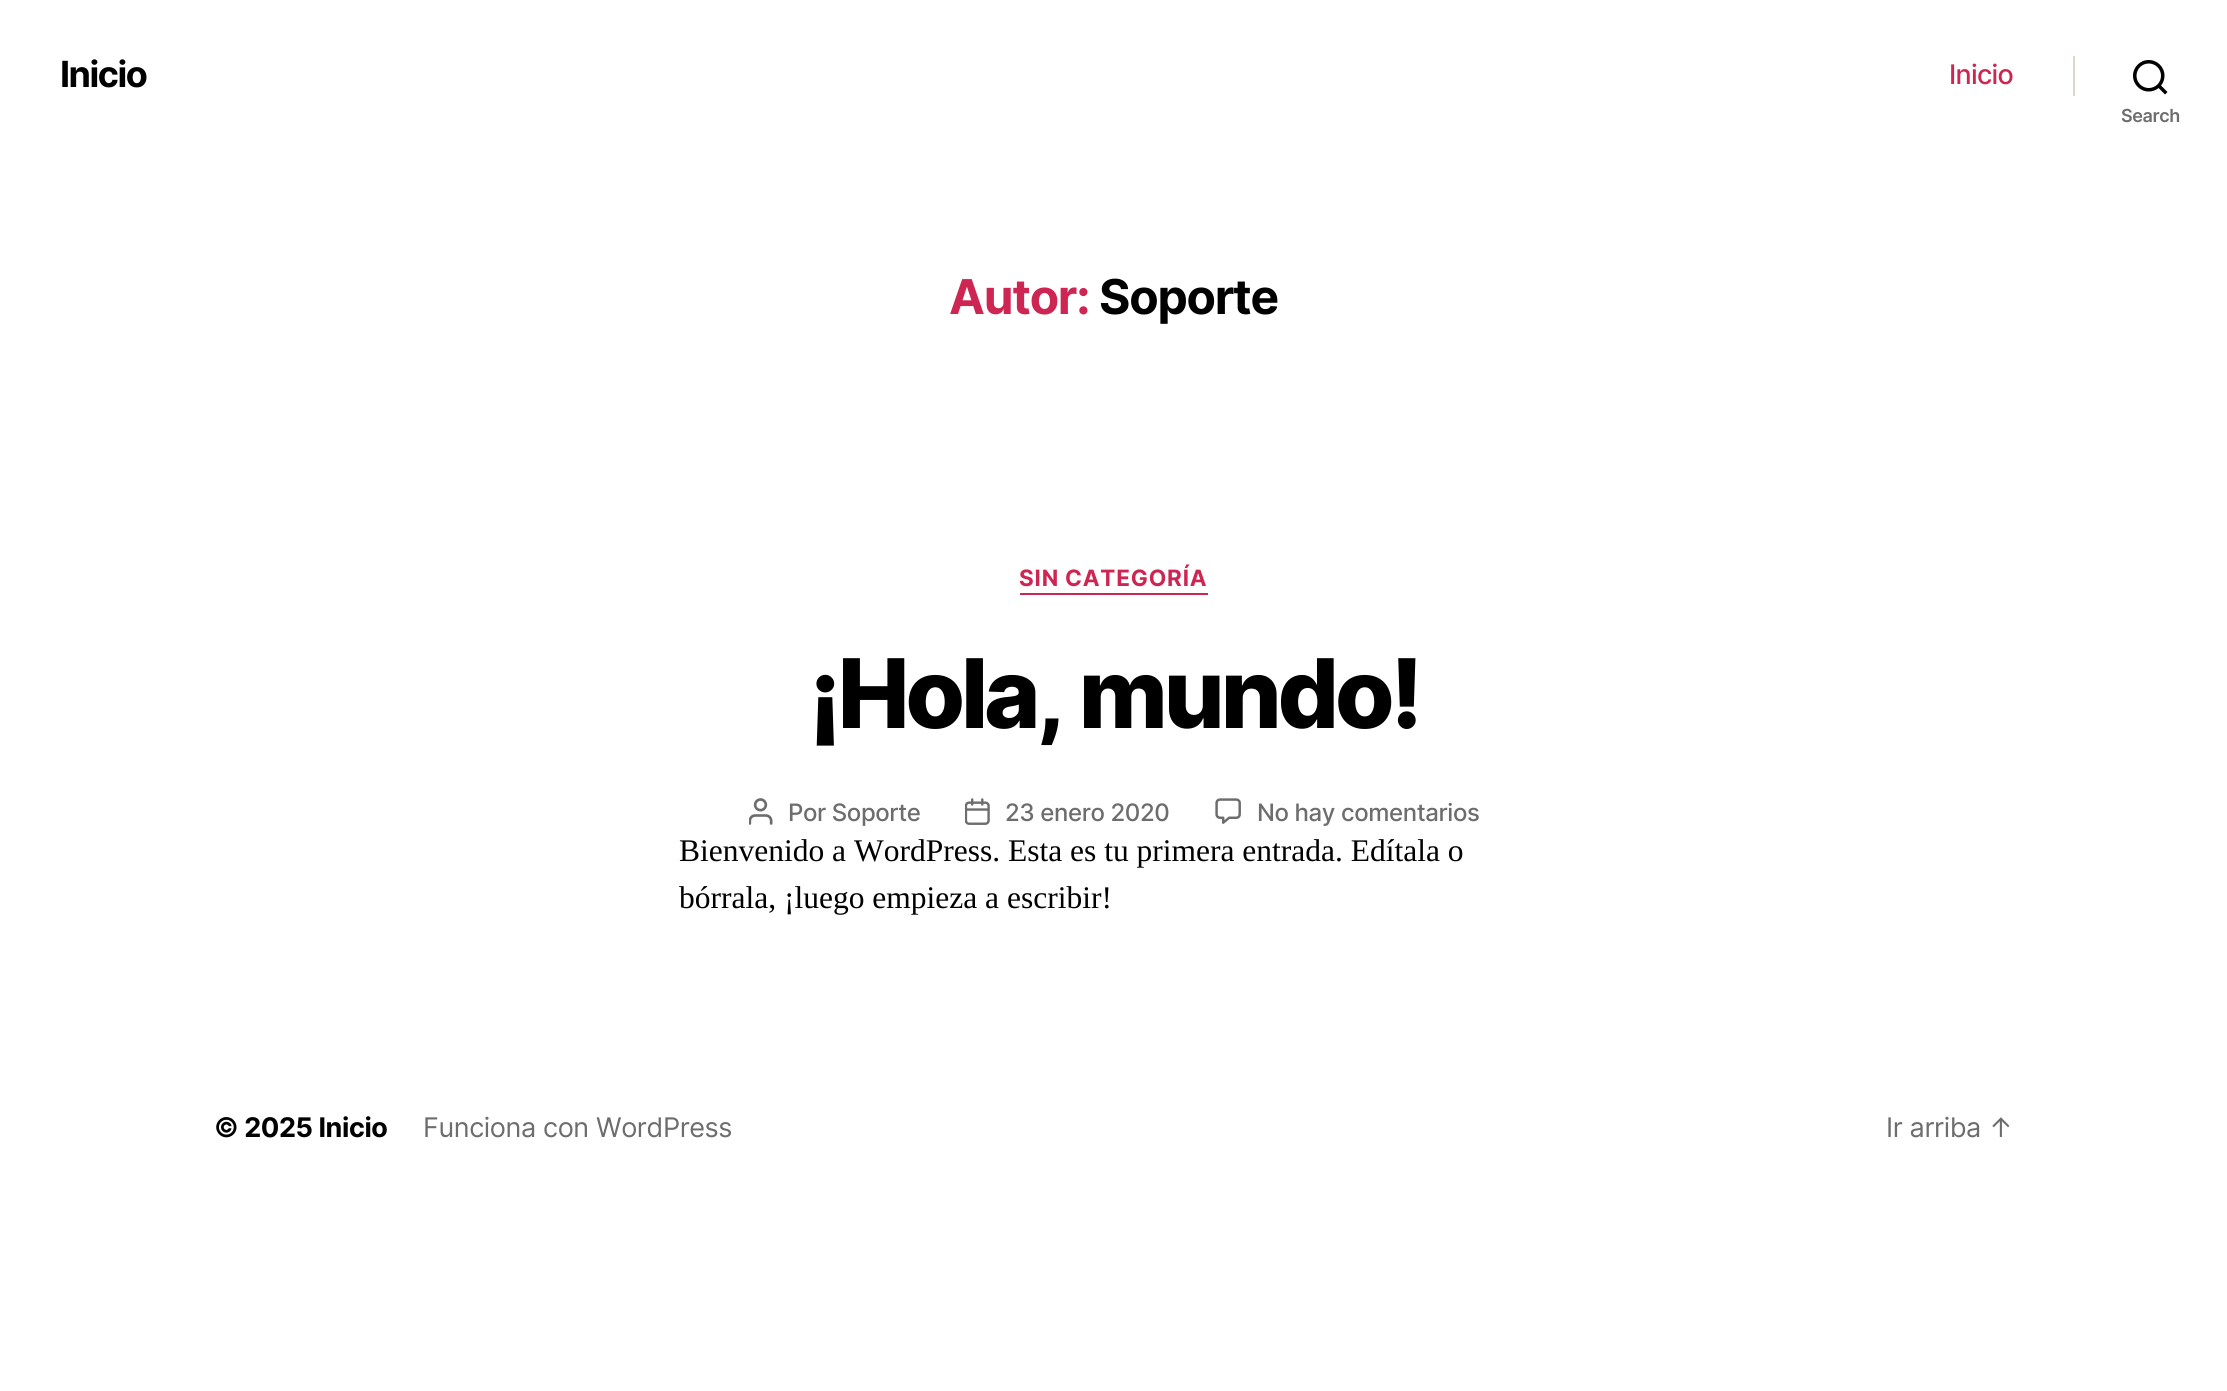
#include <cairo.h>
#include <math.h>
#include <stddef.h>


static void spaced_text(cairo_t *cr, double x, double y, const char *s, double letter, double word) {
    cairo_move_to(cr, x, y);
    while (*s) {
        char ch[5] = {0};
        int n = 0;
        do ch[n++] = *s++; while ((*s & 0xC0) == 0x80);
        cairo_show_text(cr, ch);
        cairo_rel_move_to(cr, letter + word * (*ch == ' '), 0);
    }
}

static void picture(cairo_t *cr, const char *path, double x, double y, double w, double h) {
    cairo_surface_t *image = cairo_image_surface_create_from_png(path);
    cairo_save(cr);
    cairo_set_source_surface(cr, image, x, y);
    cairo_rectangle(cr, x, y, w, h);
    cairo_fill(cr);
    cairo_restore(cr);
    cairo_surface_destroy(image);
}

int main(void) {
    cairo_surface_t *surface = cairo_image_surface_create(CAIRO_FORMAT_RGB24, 2227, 1391);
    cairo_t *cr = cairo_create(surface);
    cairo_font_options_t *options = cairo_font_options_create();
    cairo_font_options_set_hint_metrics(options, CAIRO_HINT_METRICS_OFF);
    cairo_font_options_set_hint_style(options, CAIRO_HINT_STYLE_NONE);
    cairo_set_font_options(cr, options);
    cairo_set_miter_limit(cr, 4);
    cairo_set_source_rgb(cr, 1, 1, 1);
    cairo_paint(cr);
    cairo_select_font_face(cr, "Inter", CAIRO_FONT_SLANT_NORMAL, CAIRO_FONT_WEIGHT_BOLD);
    cairo_set_font_size(cr, 36);
    cairo_set_source_rgb(cr, 0, 0, 0);
    spaced_text(cr, 60, 87, "Inicio", -1.5, 0);
    cairo_select_font_face(cr, "Inter Medium", CAIRO_FONT_SLANT_NORMAL, CAIRO_FONT_WEIGHT_NORMAL);
    cairo_set_font_size(cr, 27);
    cairo_set_source_rgb(cr, 0.804, 0.149, 0.325);
    spaced_text(cr, 1949, 84, "Inicio", -0.75, 0);
    cairo_set_source_rgb(cr, 0.863, 0.843, 0.792);
    cairo_rectangle(cr, 2073, 56, 2, 40);
    cairo_fill(cr);
    picture(cr, "img1.png", 2133, 60, 35, 35);
    cairo_select_font_face(cr, "Inter SemiBold", CAIRO_FONT_SLANT_NORMAL, CAIRO_FONT_WEIGHT_NORMAL);
    cairo_set_font_size(cr, 18);
    cairo_set_source_rgb(cr, 0.427, 0.427, 0.427);
    spaced_text(cr, 2121, 122, "Search", -0.4, 0);
    cairo_select_font_face(cr, "Inter", CAIRO_FONT_SLANT_NORMAL, CAIRO_FONT_WEIGHT_BOLD);
    cairo_set_font_size(cr, 48);
    cairo_set_source_rgb(cr, 0.804, 0.149, 0.325);
    spaced_text(cr, 949, 314, "Autor:", -1.25, 0);
    cairo_set_source_rgb(cr, 0, 0, 0);
    spaced_text(cr, 1099, 314, "Soporte", -1.25, 0);
    cairo_set_source_rgb(cr, 0.804, 0.149, 0.325);
    cairo_rectangle(cr, 1020, 593, 188, 2);
    cairo_fill(cr);
    cairo_set_font_size(cr, 22.5);
    spaced_text(cr, 1019, 586, "SIN CATEGORÍA", 0.8, 0);
    cairo_select_font_face(cr, "Inter ExtraBold", CAIRO_FONT_SLANT_NORMAL, CAIRO_FONT_WEIGHT_NORMAL);
    cairo_set_font_size(cr, 96);
    cairo_set_source_rgb(cr, 0, 0, 0);
    spaced_text(cr, 809, 728, "¡Hola, mundo!", -4, 0);
    picture(cr, "img2.png", 749, 798, 24, 27);
    cairo_select_font_face(cr, "Inter Medium", CAIRO_FONT_SLANT_NORMAL, CAIRO_FONT_WEIGHT_NORMAL);
    cairo_set_font_size(cr, 24);
    cairo_set_source_rgb(cr, 0.427, 0.427, 0.427);
    spaced_text(cr, 788, 821, "Por Soporte", -0.4, 0);
    picture(cr, "img3.png", 965, 798, 25, 27);
    spaced_text(cr, 1005, 821, "23 enero 2020", -0.4, 0);
    picture(cr, "img4.png", 1215, 798, 26, 26);
    spaced_text(cr, 1257, 821, "No hay comentarios", -0.4, 0);
    cairo_select_font_face(cr, "Liberation Serif", CAIRO_FONT_SLANT_NORMAL, CAIRO_FONT_WEIGHT_NORMAL);
    cairo_set_font_size(cr, 31.5);
    cairo_set_source_rgb(cr, 0, 0, 0);
    cairo_move_to(cr, 679, 861);
    cairo_show_text(cr, "Bienvenido a WordPress. Esta es tu primera entrada. Edítala o");
    cairo_move_to(cr, 679, 908);
    cairo_show_text(cr, "bórrala, ¡luego empieza a escribir!");
    cairo_select_font_face(cr, "Inter", CAIRO_FONT_SLANT_NORMAL, CAIRO_FONT_WEIGHT_BOLD);
    cairo_set_font_size(cr, 27);
    spaced_text(cr, 214, 1137, "© 2025 Inicio", -0.4, 0);
    cairo_select_font_face(cr, "Inter", CAIRO_FONT_SLANT_NORMAL, CAIRO_FONT_WEIGHT_NORMAL);
    cairo_set_source_rgb(cr, 0.427, 0.427, 0.427);
    spaced_text(cr, 423, 1137, "Funciona con WordPress", -0.4, 0);
    spaced_text(cr, 1886, 1137, "Ir arriba ↑", -0.4, 0);
    cairo_surface_write_to_png(surface, "page.png");
    cairo_font_options_destroy(options);
    cairo_destroy(cr);
    cairo_surface_destroy(surface);
    return 0;
}
